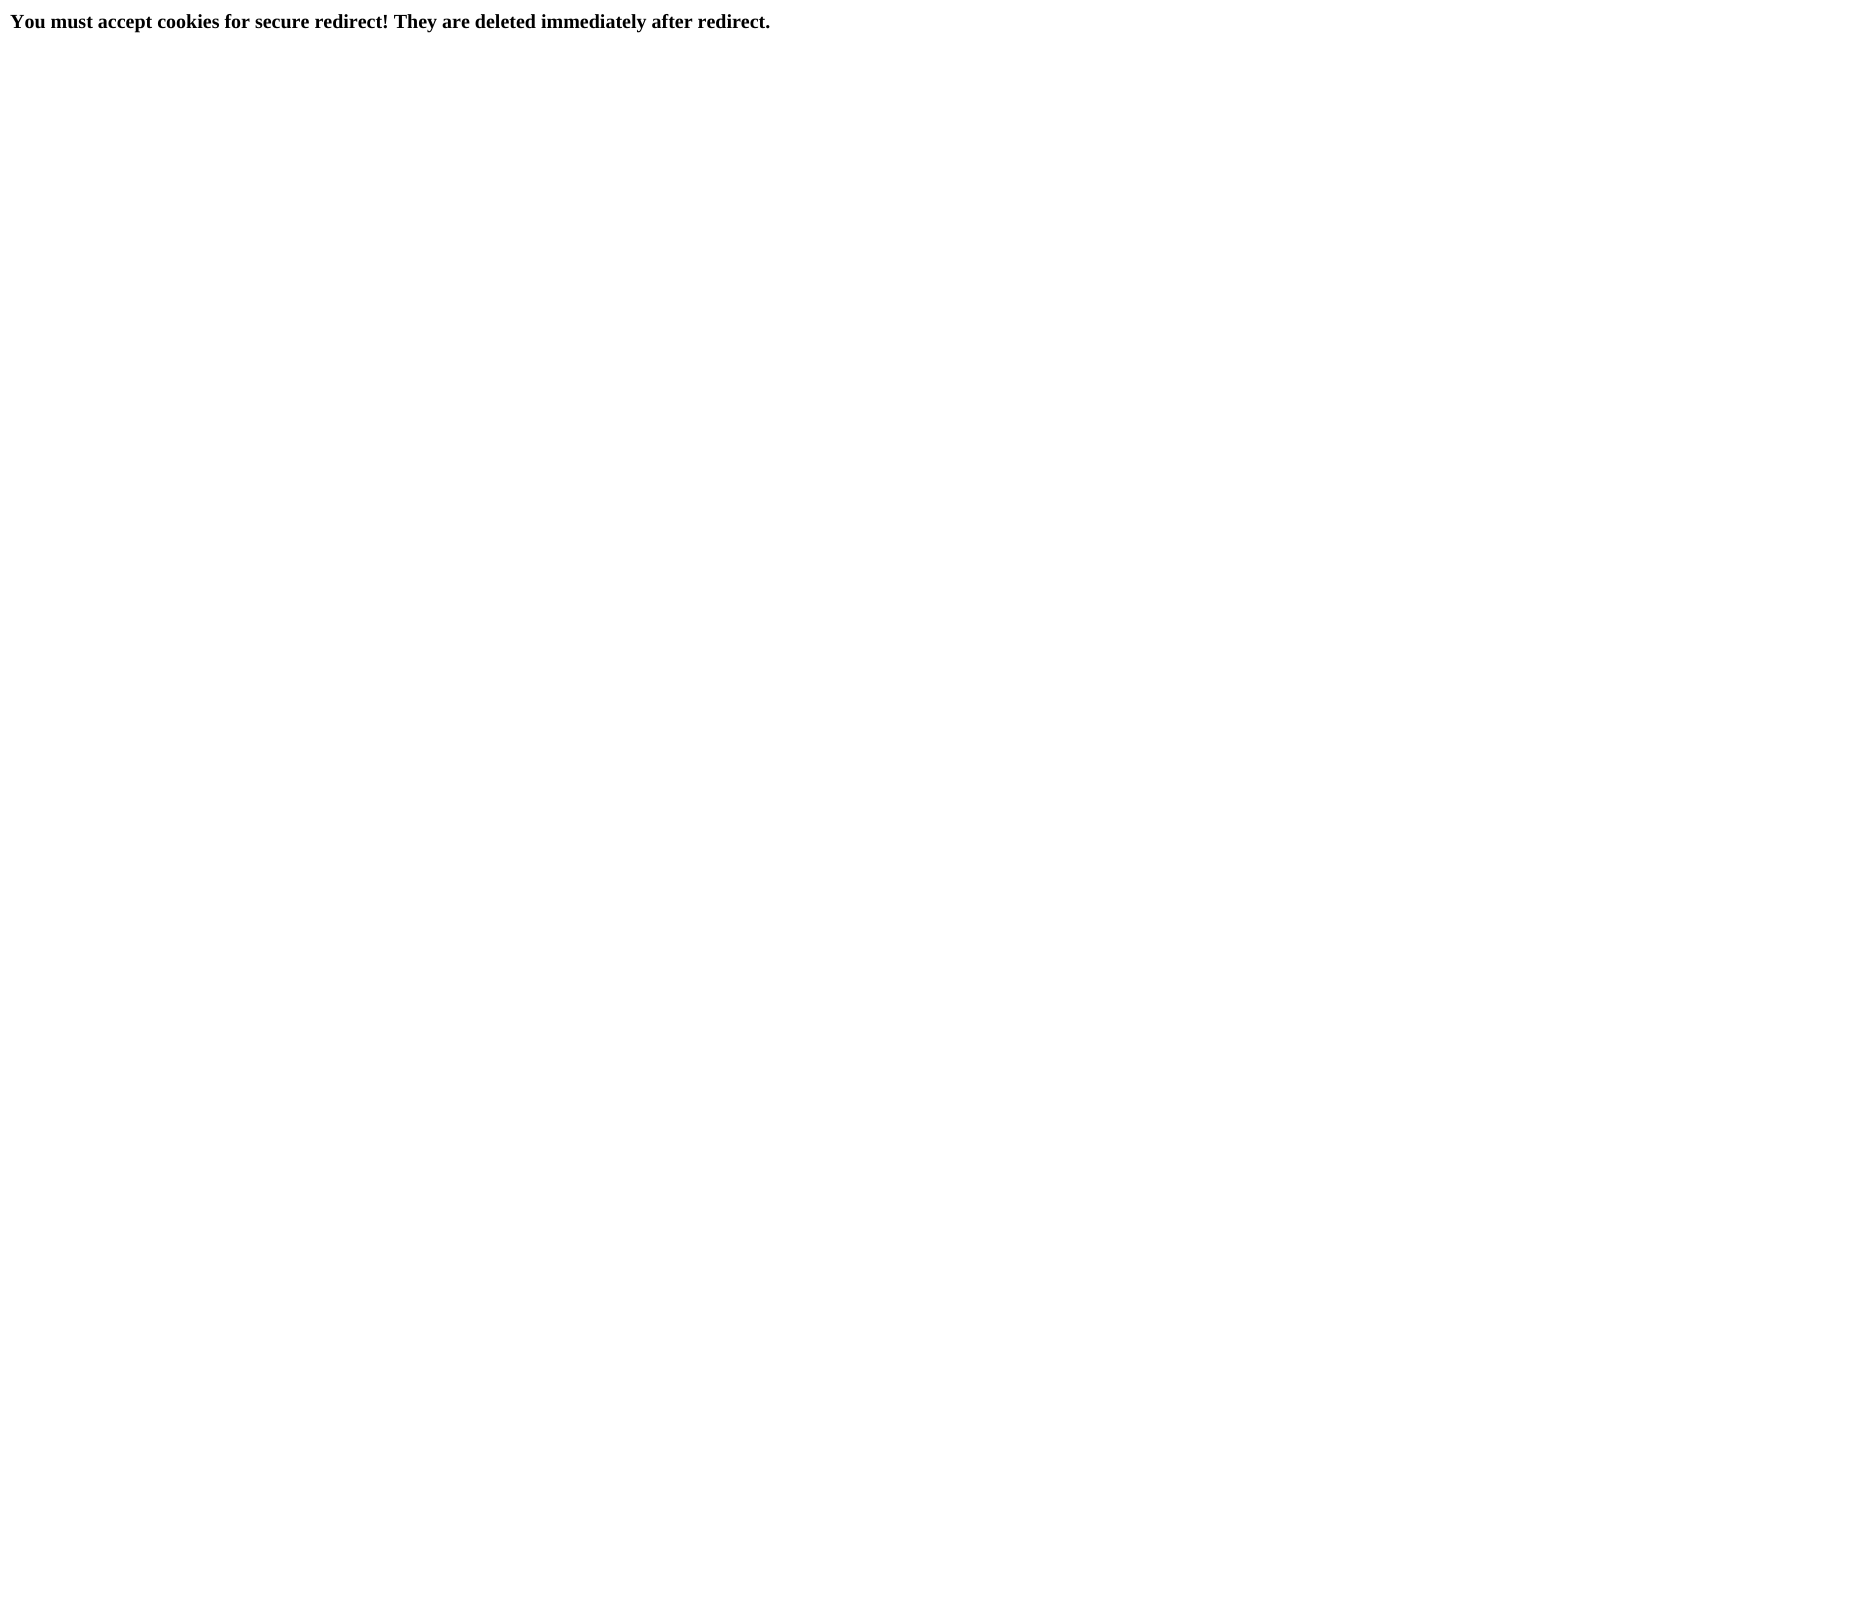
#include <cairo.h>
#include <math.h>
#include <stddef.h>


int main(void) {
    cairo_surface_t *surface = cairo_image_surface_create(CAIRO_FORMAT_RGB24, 1869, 1599);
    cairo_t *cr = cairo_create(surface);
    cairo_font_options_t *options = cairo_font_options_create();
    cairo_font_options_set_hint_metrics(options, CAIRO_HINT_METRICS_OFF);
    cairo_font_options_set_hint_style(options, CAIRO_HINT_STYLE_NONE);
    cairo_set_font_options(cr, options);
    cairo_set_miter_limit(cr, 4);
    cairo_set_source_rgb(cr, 1, 1, 1);
    cairo_paint(cr);
    cairo_select_font_face(cr, "Liberation Serif", CAIRO_FONT_SLANT_NORMAL, CAIRO_FONT_WEIGHT_BOLD);
    cairo_set_font_size(cr, 20);
    cairo_set_source_rgb(cr, 0, 0, 0);
    cairo_move_to(cr, 10, 28);
    cairo_show_text(cr, "You must accept cookies for secure redirect! They are deleted immediately after redirect.");
    cairo_surface_write_to_png(surface, "page.png");
    cairo_font_options_destroy(options);
    cairo_destroy(cr);
    cairo_surface_destroy(surface);
    return 0;
}
